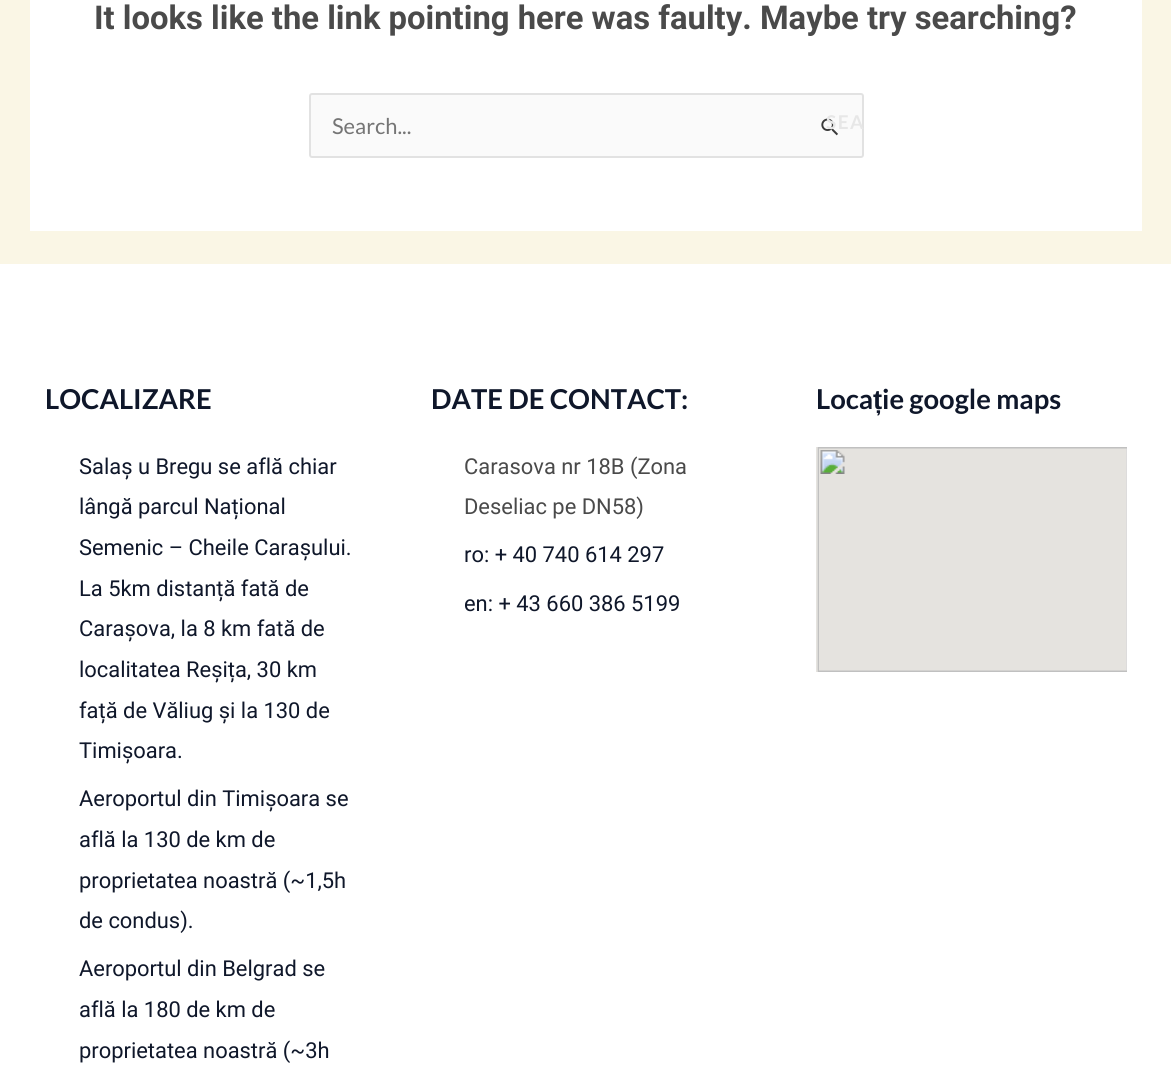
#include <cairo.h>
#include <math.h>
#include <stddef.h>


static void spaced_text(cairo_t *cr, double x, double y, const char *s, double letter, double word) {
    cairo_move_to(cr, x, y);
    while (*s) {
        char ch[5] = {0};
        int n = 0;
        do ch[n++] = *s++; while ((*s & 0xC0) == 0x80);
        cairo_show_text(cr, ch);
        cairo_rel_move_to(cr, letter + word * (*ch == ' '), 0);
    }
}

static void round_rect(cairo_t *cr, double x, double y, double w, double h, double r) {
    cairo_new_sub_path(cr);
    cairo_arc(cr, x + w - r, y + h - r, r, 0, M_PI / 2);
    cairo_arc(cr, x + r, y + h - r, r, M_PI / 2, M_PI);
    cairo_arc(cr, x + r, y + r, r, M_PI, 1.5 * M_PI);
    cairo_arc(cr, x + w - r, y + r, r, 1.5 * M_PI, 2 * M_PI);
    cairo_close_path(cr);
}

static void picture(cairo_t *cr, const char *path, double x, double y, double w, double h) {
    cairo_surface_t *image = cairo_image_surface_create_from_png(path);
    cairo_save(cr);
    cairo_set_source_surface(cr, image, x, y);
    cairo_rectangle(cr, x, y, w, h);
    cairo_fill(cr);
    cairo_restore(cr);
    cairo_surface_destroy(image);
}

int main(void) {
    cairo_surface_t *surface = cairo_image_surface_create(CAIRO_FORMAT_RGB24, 1171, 1084);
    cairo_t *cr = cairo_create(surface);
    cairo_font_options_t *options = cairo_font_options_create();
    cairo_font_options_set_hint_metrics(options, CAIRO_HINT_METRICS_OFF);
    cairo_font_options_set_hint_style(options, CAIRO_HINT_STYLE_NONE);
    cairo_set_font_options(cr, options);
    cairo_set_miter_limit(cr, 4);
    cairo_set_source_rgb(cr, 0.98, 0.961, 0.898);
    cairo_paint(cr);
    cairo_set_source_rgb(cr, 1, 1, 1);
    cairo_rectangle(cr, 30, 0, 1112, 231);
    cairo_fill(cr);
    cairo_select_font_face(cr, "Roboto", CAIRO_FONT_SLANT_NORMAL, CAIRO_FONT_WEIGHT_BOLD);
    cairo_set_font_size(cr, 32.8);
    cairo_set_source_rgb(cr, 0.29, 0.29, 0.29);
    cairo_move_to(cr, 94, 29);
    cairo_show_text(cr, "It looks like the link pointing here was faulty. Maybe try searching?");
    cairo_set_source_rgb(cr, 0.98, 0.98, 0.98);
    round_rect(cr, 310, 94, 553, 63, 2);
    cairo_fill_preserve(cr);
    cairo_set_source_rgb(cr, 0.886, 0.886, 0.886);
    cairo_stroke(cr);
    cairo_select_font_face(cr, "Lato", CAIRO_FONT_SLANT_NORMAL, CAIRO_FONT_WEIGHT_NORMAL);
    cairo_set_font_size(cr, 21.9);
    cairo_set_source_rgb(cr, 0.459, 0.459, 0.459);
    cairo_move_to(cr, 332, 134);
    cairo_show_text(cr, "Search...");
    picture(cr, "img1.png", 821, 118, 17, 18);
    cairo_select_font_face(cr, "Lato", CAIRO_FONT_SLANT_NORMAL, CAIRO_FONT_WEIGHT_BOLD);
    cairo_set_font_size(cr, 19);
    cairo_set_source_rgb(cr, 0.906, 0.906, 0.906);
    spaced_text(cr, 826, 129, "SEA", 1.5, 0);
    cairo_set_source_rgb(cr, 1, 1, 1);
    cairo_rectangle(cr, 0, 264, 1171, 820);
    cairo_fill(cr);
    cairo_set_font_size(cr, 27.4);
    cairo_set_source_rgb(cr, 0.059, 0.09, 0.165);
    cairo_move_to(cr, 45, 409);
    cairo_show_text(cr, "LOCALIZARE");
    cairo_select_font_face(cr, "Roboto", CAIRO_FONT_SLANT_NORMAL, CAIRO_FONT_WEIGHT_NORMAL);
    cairo_set_font_size(cr, 21.9);
    cairo_move_to(cr, 79, 474);
    cairo_show_text(cr, "Salaș u Bregu se află chiar");
    cairo_move_to(cr, 79, 514);
    cairo_show_text(cr, "lângă parcul Național");
    cairo_move_to(cr, 79, 555);
    cairo_show_text(cr, "Semenic – Cheile Carașului.");
    cairo_move_to(cr, 79, 596);
    cairo_show_text(cr, "La 5km distanță fată de");
    cairo_move_to(cr, 79, 636);
    cairo_show_text(cr, "Carașova, la 8 km fată de");
    cairo_move_to(cr, 79, 677);
    cairo_show_text(cr, "localitatea Reșița, 30 km");
    cairo_move_to(cr, 79, 718);
    cairo_show_text(cr, "față de Văliug și la 130 de");
    cairo_move_to(cr, 79, 758);
    cairo_show_text(cr, "Timișoara.");
    cairo_move_to(cr, 79, 806);
    cairo_show_text(cr, "Aeroportul din Timișoara se");
    cairo_move_to(cr, 79, 847);
    cairo_show_text(cr, "află la 130 de km de");
    cairo_move_to(cr, 79, 888);
    cairo_show_text(cr, "proprietatea noastră (~1,5h");
    cairo_move_to(cr, 79, 928);
    cairo_show_text(cr, "de condus).");
    cairo_move_to(cr, 79, 976);
    cairo_show_text(cr, "Aeroportul din Belgrad se");
    cairo_move_to(cr, 79, 1017);
    cairo_show_text(cr, "află la 180 de km de");
    cairo_move_to(cr, 79, 1058);
    cairo_show_text(cr, "proprietatea noastră (~3h");
    cairo_select_font_face(cr, "Lato", CAIRO_FONT_SLANT_NORMAL, CAIRO_FONT_WEIGHT_BOLD);
    cairo_set_font_size(cr, 27.4);
    cairo_move_to(cr, 431, 409);
    cairo_show_text(cr, "DATE DE CONTACT:");
    cairo_select_font_face(cr, "Roboto", CAIRO_FONT_SLANT_NORMAL, CAIRO_FONT_WEIGHT_NORMAL);
    cairo_set_font_size(cr, 21.9);
    cairo_set_source_rgb(cr, 0.29, 0.29, 0.29);
    cairo_move_to(cr, 464, 474);
    cairo_show_text(cr, "Carasova nr 18B (Zona");
    cairo_move_to(cr, 464, 514);
    cairo_show_text(cr, "Deseliac pe DN58)");
    cairo_set_source_rgb(cr, 0.059, 0.09, 0.165);
    cairo_move_to(cr, 464, 562);
    cairo_show_text(cr, "ro: + 40 740 614 297");
    cairo_move_to(cr, 464, 611);
    cairo_show_text(cr, "en: + 43 660 386 5199");
    cairo_select_font_face(cr, "Lato", CAIRO_FONT_SLANT_NORMAL, CAIRO_FONT_WEIGHT_BOLD);
    cairo_set_font_size(cr, 27.4);
    cairo_move_to(cr, 816, 409);
    cairo_show_text(cr, "Loca");
    cairo_select_font_face(cr, "Liberation Sans", CAIRO_FONT_SLANT_NORMAL, CAIRO_FONT_WEIGHT_BOLD);
    cairo_move_to(cr, 873, 409);
    cairo_show_text(cr, "ț");
    cairo_select_font_face(cr, "Lato", CAIRO_FONT_SLANT_NORMAL, CAIRO_FONT_WEIGHT_BOLD);
    cairo_move_to(cr, 882, 409);
    cairo_show_text(cr, "ie google maps");
    picture(cr, "img2.png", 816, 447, 311, 225);
    cairo_surface_write_to_png(surface, "page.png");
    cairo_font_options_destroy(options);
    cairo_destroy(cr);
    cairo_surface_destroy(surface);
    return 0;
}
